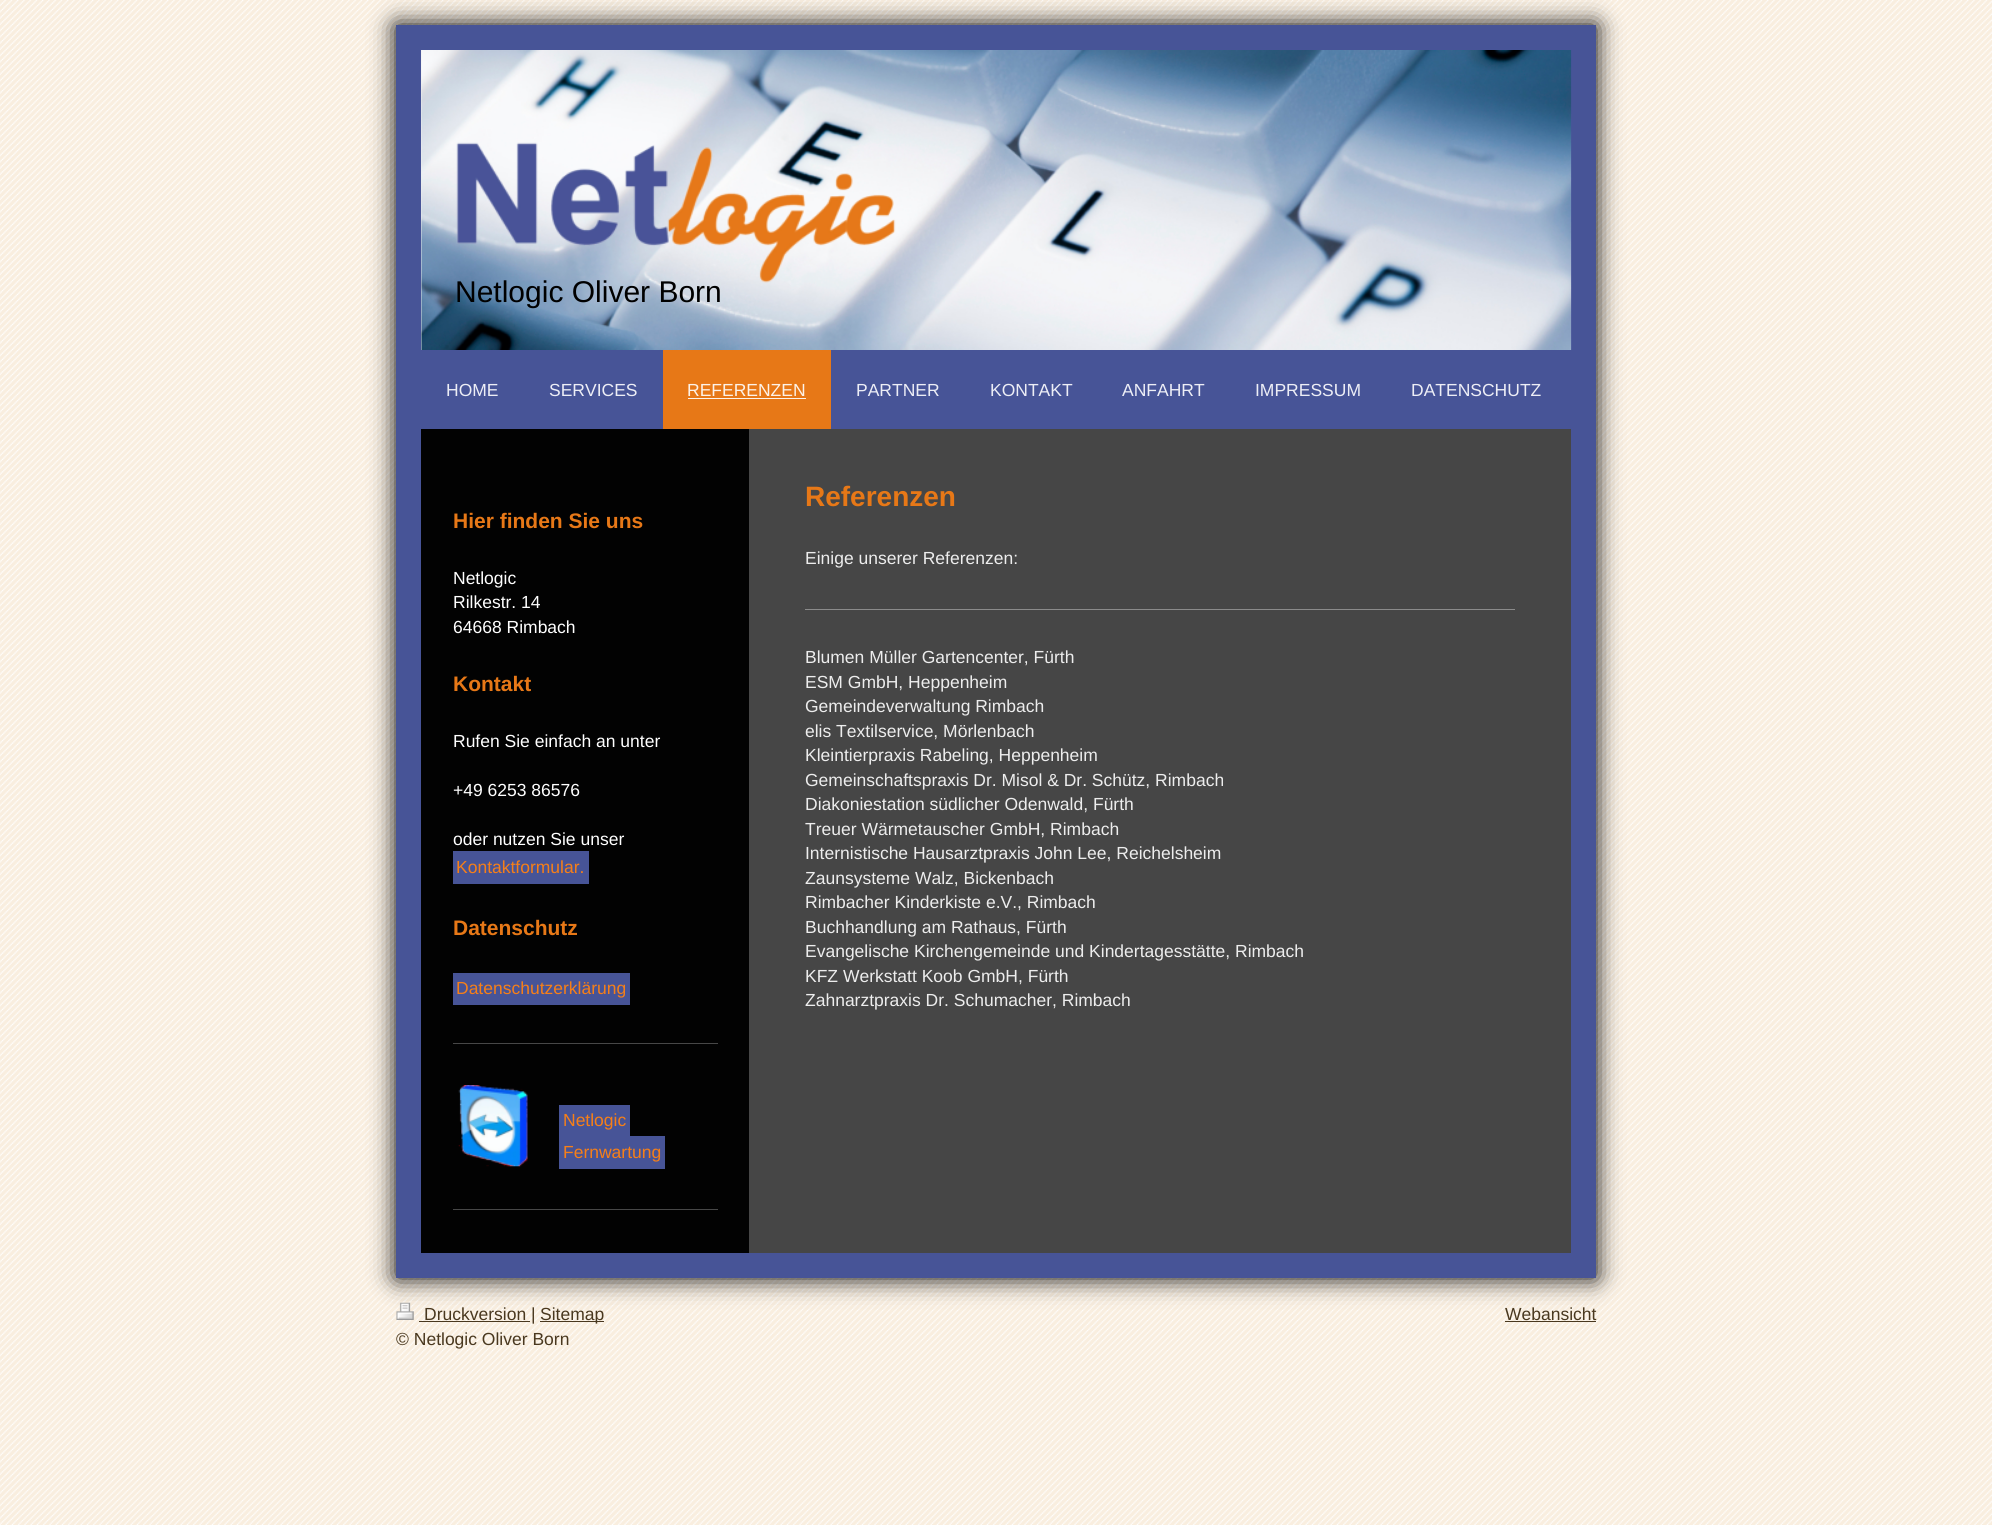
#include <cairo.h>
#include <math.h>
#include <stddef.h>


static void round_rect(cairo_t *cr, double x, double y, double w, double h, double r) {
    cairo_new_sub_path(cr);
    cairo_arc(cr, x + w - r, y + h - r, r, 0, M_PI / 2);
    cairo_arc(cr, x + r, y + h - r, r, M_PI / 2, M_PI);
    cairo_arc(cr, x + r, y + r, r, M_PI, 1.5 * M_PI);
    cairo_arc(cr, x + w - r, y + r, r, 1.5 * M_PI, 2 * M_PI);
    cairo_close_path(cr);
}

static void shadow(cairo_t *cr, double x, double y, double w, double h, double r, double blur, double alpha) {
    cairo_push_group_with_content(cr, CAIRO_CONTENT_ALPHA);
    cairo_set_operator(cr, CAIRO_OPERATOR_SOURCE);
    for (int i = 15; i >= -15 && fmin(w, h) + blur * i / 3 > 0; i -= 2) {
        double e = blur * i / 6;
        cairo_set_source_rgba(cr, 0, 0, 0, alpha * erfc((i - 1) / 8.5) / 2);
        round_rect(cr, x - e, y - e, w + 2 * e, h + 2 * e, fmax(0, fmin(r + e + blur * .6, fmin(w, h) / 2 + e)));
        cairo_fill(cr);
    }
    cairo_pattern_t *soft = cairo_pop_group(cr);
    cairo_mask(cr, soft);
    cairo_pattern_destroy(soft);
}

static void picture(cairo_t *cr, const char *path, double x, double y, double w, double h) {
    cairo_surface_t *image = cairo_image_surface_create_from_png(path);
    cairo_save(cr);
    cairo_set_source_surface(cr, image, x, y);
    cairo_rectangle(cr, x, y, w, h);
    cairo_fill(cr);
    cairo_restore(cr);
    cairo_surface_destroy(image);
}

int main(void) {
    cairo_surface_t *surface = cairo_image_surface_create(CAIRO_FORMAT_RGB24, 1992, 1525);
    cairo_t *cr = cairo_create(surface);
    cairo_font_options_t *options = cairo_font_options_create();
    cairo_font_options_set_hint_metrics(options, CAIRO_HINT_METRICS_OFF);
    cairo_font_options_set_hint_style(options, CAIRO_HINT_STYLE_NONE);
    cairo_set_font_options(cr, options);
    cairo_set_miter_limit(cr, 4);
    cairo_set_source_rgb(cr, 0.976, 0.933, 0.875);
    cairo_paint(cr);
    picture(cr, "img1.png", 0, 0, 1992, 1525);
    cairo_set_source_rgb(cr, 0, 0, 0);
    shadow(cr, 396, 25, 1200, 1253, 0, 12.5, 1);
    cairo_set_source_rgb(cr, 0.278, 0.329, 0.592);
    cairo_rectangle(cr, 396, 25, 1200, 1253);
    cairo_fill(cr);
    cairo_set_source_rgb(cr, 0.933, 0.933, 0.933);
    cairo_rectangle(cr, 421, 50, 1, 300);
    cairo_fill(cr);
    picture(cr, "img4.png", 1571, 50, 1, 300);
    picture(cr, "img2.png", 421, 50, 1151, 300);
    picture(cr, "img3.png", 456, 142, 440, 141);
    cairo_select_font_face(cr, "Liberation Sans", CAIRO_FONT_SLANT_NORMAL, CAIRO_FONT_WEIGHT_NORMAL);
    cairo_set_font_size(cr, 30);
    cairo_set_source_rgb(cr, 0, 0, 0);
    cairo_move_to(cr, 455, 302);
    cairo_show_text(cr, "Netlogic Oliver Born");
    cairo_set_font_size(cr, 17.5);
    cairo_set_source_rgb(cr, 0.929, 0.933, 0.961);
    cairo_move_to(cr, 446, 396);
    cairo_show_text(cr, "HOME");
    cairo_move_to(cr, 549, 396);
    cairo_show_text(cr, "SERVICES");
    cairo_set_source_rgb(cr, 0.906, 0.471, 0.09);
    cairo_rectangle(cr, 663, 350, 168, 79);
    cairo_fill(cr);
    cairo_set_source_rgb(cr, 0.992, 0.949, 0.91);
    cairo_move_to(cr, 687, 396);
    cairo_show_text(cr, "REFERENZEN");
    cairo_rectangle(cr, 688, 398, 118, 1);
    cairo_fill(cr);
    cairo_set_source_rgb(cr, 0.929, 0.933, 0.961);
    cairo_move_to(cr, 856, 396);
    cairo_show_text(cr, "PARTNER");
    cairo_move_to(cr, 990, 396);
    cairo_show_text(cr, "KONTAKT");
    cairo_move_to(cr, 1122, 396);
    cairo_show_text(cr, "ANFAHRT");
    cairo_move_to(cr, 1255, 396);
    cairo_show_text(cr, "IMPRESSUM");
    cairo_move_to(cr, 1411, 396);
    cairo_show_text(cr, "DATENSCHUTZ");
    cairo_set_source_rgb(cr, 0.275, 0.275, 0.275);
    cairo_rectangle(cr, 749, 429, 822, 824);
    cairo_fill(cr);
    cairo_set_source_rgb(cr, 0.008, 0.008, 0.008);
    cairo_rectangle(cr, 421, 429, 328, 824);
    cairo_fill(cr);
    cairo_select_font_face(cr, "Liberation Sans", CAIRO_FONT_SLANT_NORMAL, CAIRO_FONT_WEIGHT_BOLD);
    cairo_set_font_size(cr, 28);
    cairo_set_source_rgb(cr, 0.906, 0.471, 0.09);
    cairo_move_to(cr, 805, 506);
    cairo_show_text(cr, "Referenzen");
    cairo_select_font_face(cr, "Liberation Sans", CAIRO_FONT_SLANT_NORMAL, CAIRO_FONT_WEIGHT_NORMAL);
    cairo_set_font_size(cr, 17.5);
    cairo_set_source_rgb(cr, 0.929, 0.929, 0.929);
    cairo_move_to(cr, 805, 564);
    cairo_show_text(cr, "Einige unserer Referenzen:");
    cairo_set_source_rgb(cr, 0.545, 0.545, 0.545);
    cairo_rectangle(cr, 805, 609, 710, 1);
    cairo_fill(cr);
    cairo_set_source_rgb(cr, 0.929, 0.929, 0.929);
    cairo_move_to(cr, 805, 663);
    cairo_show_text(cr, "Blumen Müller Gartencenter, Fürth");
    cairo_move_to(cr, 805, 688);
    cairo_show_text(cr, "ESM GmbH, Heppenheim");
    cairo_move_to(cr, 805, 712);
    cairo_show_text(cr, "Gemeindeverwaltung Rimbach");
    cairo_move_to(cr, 805, 737);
    cairo_show_text(cr, "elis Textilservice, Mörlenbach");
    cairo_move_to(cr, 805, 761);
    cairo_show_text(cr, "Kleintierpraxis Rabeling, Heppenheim");
    cairo_move_to(cr, 805, 786);
    cairo_show_text(cr, "Gemeinschaftspraxis Dr. Misol & Dr. Schütz, Rimbach");
    cairo_move_to(cr, 805, 810);
    cairo_show_text(cr, "Diakoniestation südlicher Odenwald, Fürth");
    cairo_move_to(cr, 805, 835);
    cairo_show_text(cr, "Treuer Wärmetauscher GmbH, Rimbach");
    cairo_move_to(cr, 805, 859);
    cairo_show_text(cr, "Internistische Hausarztpraxis John Lee, Reichelsheim");
    cairo_move_to(cr, 805, 884);
    cairo_show_text(cr, "Zaunsysteme Walz, Bickenbach");
    cairo_move_to(cr, 805, 908);
    cairo_show_text(cr, "Rimbacher Kinderkiste e.V., Rimbach");
    cairo_move_to(cr, 805, 933);
    cairo_show_text(cr, "Buchhandlung am Rathaus, Fürth");
    cairo_move_to(cr, 805, 957);
    cairo_show_text(cr, "Evangelische Kirchengemeinde und Kindertagesstätte, Rimbach");
    cairo_move_to(cr, 805, 982);
    cairo_show_text(cr, "KFZ Werkstatt Koob GmbH, Fürth");
    cairo_move_to(cr, 805, 1006);
    cairo_show_text(cr, "Zahnarztpraxis Dr. Schumacher, Rimbach");
    cairo_select_font_face(cr, "Liberation Sans", CAIRO_FONT_SLANT_NORMAL, CAIRO_FONT_WEIGHT_BOLD);
    cairo_set_font_size(cr, 21);
    cairo_set_source_rgb(cr, 0.906, 0.471, 0.09);
    cairo_move_to(cr, 453, 528);
    cairo_show_text(cr, "Hier finden Sie uns");
    cairo_select_font_face(cr, "Liberation Sans", CAIRO_FONT_SLANT_NORMAL, CAIRO_FONT_WEIGHT_NORMAL);
    cairo_set_font_size(cr, 17.5);
    cairo_set_source_rgb(cr, 1, 1, 1);
    cairo_move_to(cr, 453, 584);
    cairo_show_text(cr, "Netlogic");
    cairo_move_to(cr, 453, 608);
    cairo_show_text(cr, "Rilkestr. 14");
    cairo_move_to(cr, 453, 633);
    cairo_show_text(cr, "64668 Rimbach");
    cairo_select_font_face(cr, "Liberation Sans", CAIRO_FONT_SLANT_NORMAL, CAIRO_FONT_WEIGHT_BOLD);
    cairo_set_font_size(cr, 21);
    cairo_set_source_rgb(cr, 0.906, 0.471, 0.09);
    cairo_move_to(cr, 453, 691);
    cairo_show_text(cr, "Kontakt");
    cairo_select_font_face(cr, "Liberation Sans", CAIRO_FONT_SLANT_NORMAL, CAIRO_FONT_WEIGHT_NORMAL);
    cairo_set_font_size(cr, 17.5);
    cairo_set_source_rgb(cr, 1, 1, 1);
    cairo_move_to(cr, 453, 747);
    cairo_show_text(cr, "Rufen Sie einfach an unter");
    cairo_move_to(cr, 453, 796);
    cairo_show_text(cr, "+49 6253 86576");
    cairo_move_to(cr, 453, 845);
    cairo_show_text(cr, "oder nutzen Sie unser");
    cairo_set_source_rgb(cr, 0.278, 0.329, 0.592);
    cairo_rectangle(cr, 453, 851, 136, 33);
    cairo_fill(cr);
    cairo_set_source_rgb(cr, 0.961, 0.498, 0.094);
    cairo_move_to(cr, 456, 873);
    cairo_show_text(cr, "Kontaktformular.");
    cairo_select_font_face(cr, "Liberation Sans", CAIRO_FONT_SLANT_NORMAL, CAIRO_FONT_WEIGHT_BOLD);
    cairo_set_font_size(cr, 21);
    cairo_set_source_rgb(cr, 0.906, 0.471, 0.09);
    cairo_move_to(cr, 453, 935);
    cairo_show_text(cr, "Datenschutz");
    cairo_set_source_rgb(cr, 0.278, 0.329, 0.592);
    cairo_rectangle(cr, 453, 973, 177, 32);
    cairo_fill(cr);
    cairo_select_font_face(cr, "Liberation Sans", CAIRO_FONT_SLANT_NORMAL, CAIRO_FONT_WEIGHT_NORMAL);
    cairo_set_font_size(cr, 17.5);
    cairo_set_source_rgb(cr, 0.961, 0.498, 0.094);
    cairo_move_to(cr, 456, 994);
    cairo_show_text(cr, "Datenschutzerklärung");
    cairo_set_source_rgb(cr, 0.278, 0.278, 0.278);
    cairo_rectangle(cr, 453, 1043, 265, 1);
    cairo_fill(cr);
    picture(cr, "img5.png", 458, 1085, 70, 82);
    cairo_set_source_rgb(cr, 0.278, 0.329, 0.592);
    cairo_rectangle(cr, 559, 1105, 71, 31);
    cairo_fill(cr);
    cairo_set_source_rgb(cr, 0.961, 0.498, 0.094);
    cairo_move_to(cr, 563, 1126);
    cairo_show_text(cr, "Netlogic");
    cairo_set_source_rgb(cr, 0.278, 0.329, 0.592);
    cairo_rectangle(cr, 559, 1136, 106, 33);
    cairo_fill(cr);
    cairo_set_source_rgb(cr, 0.961, 0.498, 0.094);
    cairo_move_to(cr, 563, 1158);
    cairo_show_text(cr, "Fernwartung");
    cairo_set_source_rgb(cr, 0.278, 0.278, 0.278);
    cairo_rectangle(cr, 453, 1209, 265, 1);
    cairo_fill(cr);
    picture(cr, "img6.png", 396, 1302, 18, 18);
    cairo_set_source_rgb(cr, 0.286, 0.22, 0.122);
    cairo_rectangle(cr, 419, 1321, 111, 1);
    cairo_fill(cr);
    cairo_move_to(cr, 424, 1320);
    cairo_show_text(cr, "Druckversion |");
    cairo_rectangle(cr, 540, 1321, 64, 1);
    cairo_fill(cr);
    cairo_move_to(cr, 540, 1320);
    cairo_show_text(cr, "Sitemap");
    cairo_move_to(cr, 396, 1345);
    cairo_show_text(cr, "© Netlogic Oliver Born");
    cairo_move_to(cr, 1505, 1320);
    cairo_show_text(cr, "Webansicht");
    cairo_rectangle(cr, 1505, 1321, 91, 1);
    cairo_fill(cr);
    cairo_surface_write_to_png(surface, "page.png");
    cairo_font_options_destroy(options);
    cairo_destroy(cr);
    cairo_surface_destroy(surface);
    return 0;
}
